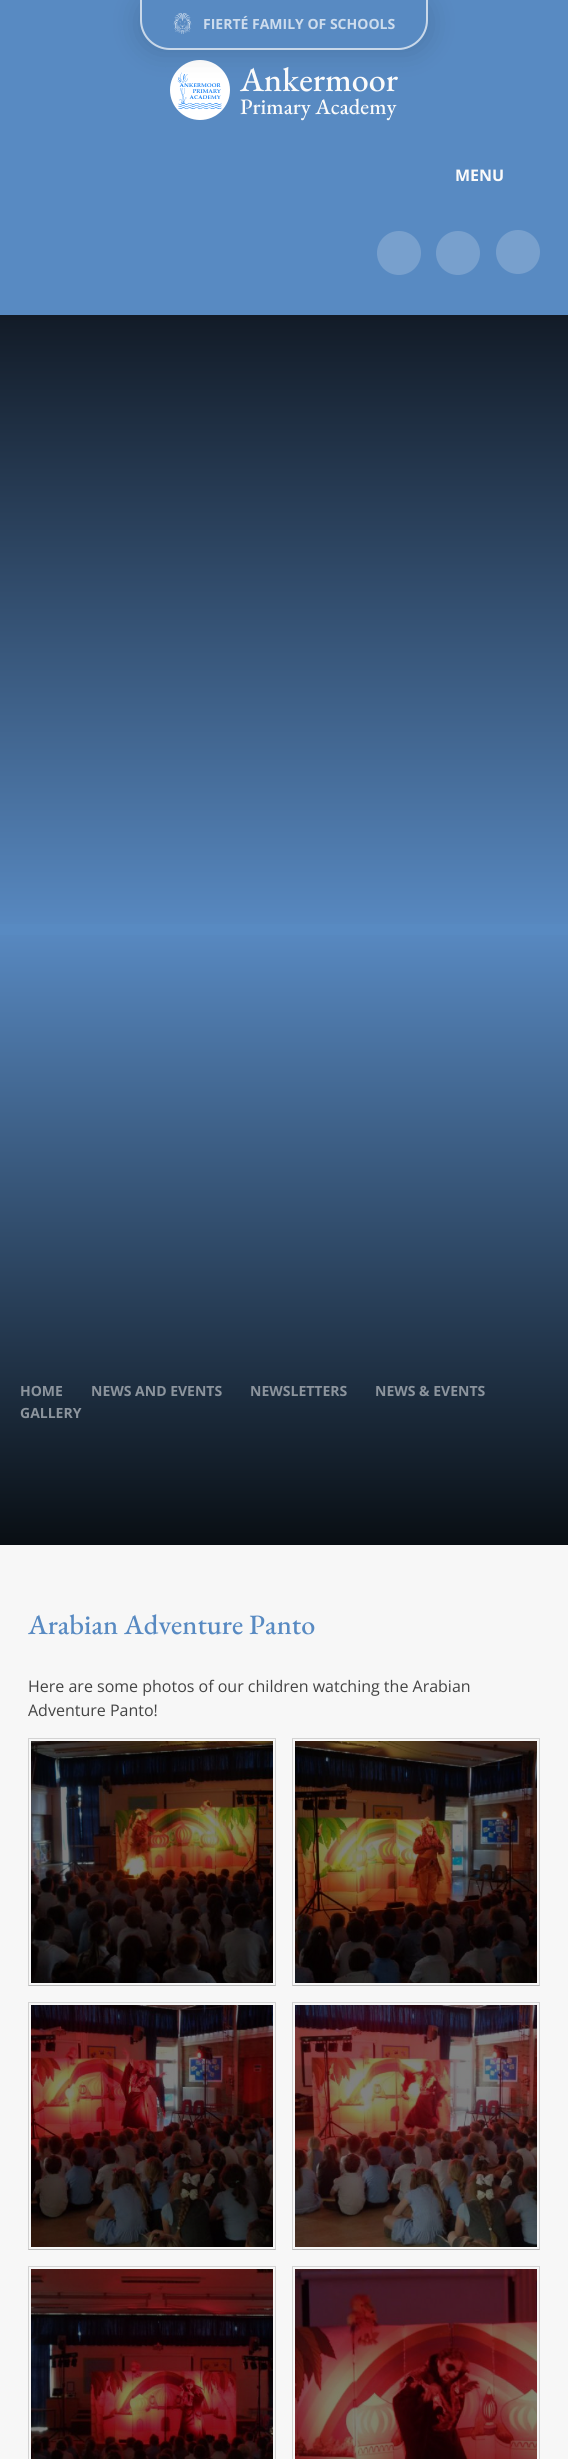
#include <cairo.h>
#include <math.h>
#include <stddef.h>


static void round_rect(cairo_t *cr, double x, double y, double w, double h, double r) {
    cairo_new_sub_path(cr);
    cairo_arc(cr, x + w - r, y + h - r, r, 0, M_PI / 2);
    cairo_arc(cr, x + r, y + h - r, r, M_PI / 2, M_PI);
    cairo_arc(cr, x + r, y + r, r, M_PI, 1.5 * M_PI);
    cairo_arc(cr, x + w - r, y + r, r, 1.5 * M_PI, 2 * M_PI);
    cairo_close_path(cr);
}

static void shadow(cairo_t *cr, double x, double y, double w, double h, double r, double blur, double alpha) {
    cairo_push_group_with_content(cr, CAIRO_CONTENT_ALPHA);
    cairo_set_operator(cr, CAIRO_OPERATOR_SOURCE);
    for (int i = 15; i >= -15 && fmin(w, h) + blur * i / 3 > 0; i -= 2) {
        double e = blur * i / 6;
        cairo_set_source_rgba(cr, 0, 0, 0, alpha * erfc((i - 1) / 8.5) / 2);
        round_rect(cr, x - e, y - e, w + 2 * e, h + 2 * e, fmax(0, fmin(r + e + blur * .6, fmin(w, h) / 2 + e)));
        cairo_fill(cr);
    }
    cairo_pattern_t *soft = cairo_pop_group(cr);
    cairo_mask(cr, soft);
    cairo_pattern_destroy(soft);
}

static void picture(cairo_t *cr, const char *path, double x, double y, double w, double h) {
    cairo_surface_t *image = cairo_image_surface_create_from_png(path);
    cairo_save(cr);
    cairo_set_source_surface(cr, image, x, y);
    cairo_rectangle(cr, x, y, w, h);
    cairo_fill(cr);
    cairo_restore(cr);
    cairo_surface_destroy(image);
}

int main(void) {
    cairo_surface_t *surface = cairo_image_surface_create(CAIRO_FORMAT_RGB24, 568, 2459);
    cairo_t *cr = cairo_create(surface);
    cairo_font_options_t *options = cairo_font_options_create();
    cairo_font_options_set_hint_metrics(options, CAIRO_HINT_METRICS_OFF);
    cairo_font_options_set_hint_style(options, CAIRO_HINT_STYLE_NONE);
    cairo_set_font_options(cr, options);
    cairo_set_miter_limit(cr, 4);
    cairo_pattern_t *gradient;
    cairo_set_source_rgb(cr, 0.345, 0.541, 0.761);
    cairo_paint(cr);
    cairo_set_source_rgb(cr, 1, 1, 1);
    cairo_arc(cr, 200, 90, 30, 0, 2 * M_PI);
    cairo_fill(cr);
    picture(cr, "img2.png", 177, 72, 45, 37);
    cairo_save(cr);
    cairo_set_fill_rule(cr, CAIRO_FILL_RULE_EVEN_ODD);
    cairo_new_path(cr);
    cairo_move_to(cr, 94, 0);
    cairo_line_to(cr, 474, 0);
    cairo_line_to(cr, 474, 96);
    cairo_line_to(cr, 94, 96);
    cairo_close_path(cr);
    cairo_move_to(cr, 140, -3);
    cairo_line_to(cr, 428, -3);
    cairo_line_to(cr, 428, 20);
    cairo_curve_to(cr, 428, 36.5, 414.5, 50, 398, 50);
    cairo_line_to(cr, 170, 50);
    cairo_curve_to(cr, 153.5, 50, 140, 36.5, 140, 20);
    cairo_close_path(cr);
    cairo_clip(cr);
    cairo_set_source_rgb(cr, 0, 0, 0);
    shadow(cr, 140, -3, 288, 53, 30, 15, 0.15);
    cairo_restore(cr);
    cairo_new_path(cr);
    cairo_move_to(cr, 141, -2);
    cairo_line_to(cr, 427, -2);
    cairo_line_to(cr, 427, 20);
    cairo_curve_to(cr, 427, 36, 414, 49, 398, 49);
    cairo_line_to(cr, 170, 49);
    cairo_curve_to(cr, 154, 49, 141, 36, 141, 20);
    cairo_close_path(cr);
    cairo_set_source_rgba(cr, 0.98, 0.98, 0.98, 0.7);
    cairo_stroke(cr);
    picture(cr, "img1.png", 173, 13, 19, 21);
    cairo_select_font_face(cr, "Open Sans", CAIRO_FONT_SLANT_NORMAL, CAIRO_FONT_WEIGHT_BOLD);
    cairo_set_font_size(cr, 14);
    cairo_set_source_rgb(cr, 0.804, 0.863, 0.929);
    cairo_move_to(cr, 203, 29);
    cairo_show_text(cr, "FIERTÉ FAMILY OF SCHOOLS");
    cairo_select_font_face(cr, "EB Garamond Medium", CAIRO_FONT_SLANT_NORMAL, CAIRO_FONT_WEIGHT_NORMAL);
    cairo_set_font_size(cr, 34);
    cairo_set_source_rgb(cr, 0.98, 0.98, 0.98);
    cairo_move_to(cr, 240, 91);
    cairo_show_text(cr, "Ankermoor");
    cairo_set_font_size(cr, 22);
    cairo_move_to(cr, 240, 114);
    cairo_show_text(cr, "Primary Academy");
    cairo_select_font_face(cr, "Open Sans", CAIRO_FONT_SLANT_NORMAL, CAIRO_FONT_WEIGHT_BOLD);
    cairo_set_font_size(cr, 16);
    cairo_move_to(cr, 455, 181);
    cairo_show_text(cr, "MENU");
    cairo_set_source_rgb(cr, 0.471, 0.627, 0.804);
    cairo_new_path(cr);
    cairo_arc(cr, 399, 253, 22, 0, 2 * M_PI);
    cairo_fill(cr);
    cairo_arc(cr, 458, 253, 22, 0, 2 * M_PI);
    cairo_fill(cr);
    cairo_arc(cr, 518, 252, 22, 0, 2 * M_PI);
    cairo_fill(cr);
    gradient = cairo_pattern_create_linear(284, 315, 284, 930);
    cairo_pattern_add_color_stop_rgba(gradient, 0, 0.071, 0.106, 0.153, 1);
    cairo_pattern_add_color_stop_rgba(gradient, 1, 0.345, 0.537, 0.757, 1);
    cairo_set_source(cr, gradient);
    cairo_pattern_destroy(gradient);
    cairo_rectangle(cr, 0, 315, 568, 609);
    cairo_fill(cr);
    gradient = cairo_pattern_create_linear(284, 930, 284, 1545);
    cairo_pattern_add_color_stop_rgba(gradient, 0, 0.345, 0.537, 0.757, 1);
    cairo_pattern_add_color_stop_rgba(gradient, 1, 0.035, 0.055, 0.075, 1);
    cairo_set_source(cr, gradient);
    cairo_pattern_destroy(gradient);
    cairo_rectangle(cr, 0, 935, 568, 610);
    cairo_fill(cr);
    cairo_set_font_size(cr, 14);
    cairo_set_source_rgb(cr, 0.549, 0.58, 0.616);
    cairo_move_to(cr, 20, 1396);
    cairo_show_text(cr, "HOME");
    cairo_move_to(cr, 91, 1396);
    cairo_show_text(cr, "NEWS AND EVENTS");
    cairo_move_to(cr, 250, 1396);
    cairo_show_text(cr, "NEWSLETTERS");
    cairo_move_to(cr, 375, 1396);
    cairo_show_text(cr, "NEWS & EVENTS");
    cairo_move_to(cr, 20, 1418);
    cairo_show_text(cr, "GALLERY");
    cairo_set_source_rgb(cr, 0.965, 0.965, 0.965);
    cairo_rectangle(cr, 0, 1545, 568, 914);
    cairo_fill(cr);
    cairo_select_font_face(cr, "EB Garamond Medium", CAIRO_FONT_SLANT_NORMAL, CAIRO_FONT_WEIGHT_NORMAL);
    cairo_set_font_size(cr, 28);
    cairo_set_source_rgb(cr, 0.345, 0.541, 0.761);
    cairo_move_to(cr, 28, 1634);
    cairo_show_text(cr, "Arabian Adventure Panto");
    cairo_select_font_face(cr, "Open Sans", CAIRO_FONT_SLANT_NORMAL, CAIRO_FONT_WEIGHT_NORMAL);
    cairo_set_font_size(cr, 16);
    cairo_set_source_rgb(cr, 0.267, 0.267, 0.267);
    cairo_move_to(cr, 28, 1692);
    cairo_show_text(cr, "Here are some photos of our children watching the Arabian");
    cairo_move_to(cr, 28, 1716);
    cairo_show_text(cr, "Adventure Panto!");
    cairo_set_source_rgb(cr, 0.827, 0.827, 0.827);
    cairo_new_path(cr);
    cairo_move_to(cr, 28, 1738);
    cairo_line_to(cr, 276, 1738);
    cairo_line_to(cr, 275, 1739);
    cairo_line_to(cr, 29, 1739);
    cairo_close_path(cr);
    cairo_fill(cr);
    cairo_set_source_rgba(cr, 0, 0, 0, 0.15);
    cairo_new_path(cr);
    cairo_move_to(cr, 276, 1738);
    cairo_line_to(cr, 276, 1986);
    cairo_line_to(cr, 275, 1985);
    cairo_line_to(cr, 275, 1739);
    cairo_close_path(cr);
    cairo_fill(cr);
    cairo_set_source_rgba(cr, 0, 0, 0, 0.25);
    cairo_new_path(cr);
    cairo_move_to(cr, 276, 1986);
    cairo_line_to(cr, 28, 1986);
    cairo_line_to(cr, 29, 1985);
    cairo_line_to(cr, 275, 1985);
    cairo_close_path(cr);
    cairo_fill(cr);
    cairo_set_source_rgba(cr, 0, 0, 0, 0.15);
    cairo_new_path(cr);
    cairo_move_to(cr, 28, 1986);
    cairo_line_to(cr, 28, 1738);
    cairo_line_to(cr, 29, 1739);
    cairo_line_to(cr, 29, 1985);
    cairo_close_path(cr);
    cairo_fill(cr);
    cairo_set_source_rgb(cr, 0, 0, 0);
    cairo_rectangle(cr, 31, 1741, 242, 242);
    cairo_fill(cr);
    picture(cr, "img3.png", 31, 1741, 242, 242);
    cairo_set_source_rgb(cr, 0.827, 0.827, 0.827);
    cairo_new_path(cr);
    cairo_move_to(cr, 292, 1738);
    cairo_line_to(cr, 540, 1738);
    cairo_line_to(cr, 539, 1739);
    cairo_line_to(cr, 293, 1739);
    cairo_close_path(cr);
    cairo_fill(cr);
    cairo_set_source_rgba(cr, 0, 0, 0, 0.15);
    cairo_new_path(cr);
    cairo_move_to(cr, 540, 1738);
    cairo_line_to(cr, 540, 1986);
    cairo_line_to(cr, 539, 1985);
    cairo_line_to(cr, 539, 1739);
    cairo_close_path(cr);
    cairo_fill(cr);
    cairo_set_source_rgba(cr, 0, 0, 0, 0.25);
    cairo_new_path(cr);
    cairo_move_to(cr, 540, 1986);
    cairo_line_to(cr, 292, 1986);
    cairo_line_to(cr, 293, 1985);
    cairo_line_to(cr, 539, 1985);
    cairo_close_path(cr);
    cairo_fill(cr);
    cairo_set_source_rgba(cr, 0, 0, 0, 0.15);
    cairo_new_path(cr);
    cairo_move_to(cr, 292, 1986);
    cairo_line_to(cr, 292, 1738);
    cairo_line_to(cr, 293, 1739);
    cairo_line_to(cr, 293, 1985);
    cairo_close_path(cr);
    cairo_fill(cr);
    cairo_set_source_rgb(cr, 0, 0, 0);
    cairo_rectangle(cr, 295, 1741, 242, 242);
    cairo_fill(cr);
    picture(cr, "img4.png", 295, 1741, 242, 242);
    cairo_set_source_rgb(cr, 0.827, 0.827, 0.827);
    cairo_new_path(cr);
    cairo_move_to(cr, 28, 2002);
    cairo_line_to(cr, 276, 2002);
    cairo_line_to(cr, 275, 2003);
    cairo_line_to(cr, 29, 2003);
    cairo_close_path(cr);
    cairo_fill(cr);
    cairo_set_source_rgba(cr, 0, 0, 0, 0.15);
    cairo_new_path(cr);
    cairo_move_to(cr, 276, 2002);
    cairo_line_to(cr, 276, 2250);
    cairo_line_to(cr, 275, 2249);
    cairo_line_to(cr, 275, 2003);
    cairo_close_path(cr);
    cairo_fill(cr);
    cairo_set_source_rgba(cr, 0, 0, 0, 0.25);
    cairo_new_path(cr);
    cairo_move_to(cr, 276, 2250);
    cairo_line_to(cr, 28, 2250);
    cairo_line_to(cr, 29, 2249);
    cairo_line_to(cr, 275, 2249);
    cairo_close_path(cr);
    cairo_fill(cr);
    cairo_set_source_rgba(cr, 0, 0, 0, 0.15);
    cairo_new_path(cr);
    cairo_move_to(cr, 28, 2250);
    cairo_line_to(cr, 28, 2002);
    cairo_line_to(cr, 29, 2003);
    cairo_line_to(cr, 29, 2249);
    cairo_close_path(cr);
    cairo_fill(cr);
    cairo_set_source_rgb(cr, 0, 0, 0);
    cairo_rectangle(cr, 31, 2005, 242, 242);
    cairo_fill(cr);
    picture(cr, "img5.png", 31, 2005, 242, 242);
    cairo_set_source_rgb(cr, 0.827, 0.827, 0.827);
    cairo_new_path(cr);
    cairo_move_to(cr, 292, 2002);
    cairo_line_to(cr, 540, 2002);
    cairo_line_to(cr, 539, 2003);
    cairo_line_to(cr, 293, 2003);
    cairo_close_path(cr);
    cairo_fill(cr);
    cairo_set_source_rgba(cr, 0, 0, 0, 0.15);
    cairo_new_path(cr);
    cairo_move_to(cr, 540, 2002);
    cairo_line_to(cr, 540, 2250);
    cairo_line_to(cr, 539, 2249);
    cairo_line_to(cr, 539, 2003);
    cairo_close_path(cr);
    cairo_fill(cr);
    cairo_set_source_rgba(cr, 0, 0, 0, 0.25);
    cairo_new_path(cr);
    cairo_move_to(cr, 540, 2250);
    cairo_line_to(cr, 292, 2250);
    cairo_line_to(cr, 293, 2249);
    cairo_line_to(cr, 539, 2249);
    cairo_close_path(cr);
    cairo_fill(cr);
    cairo_set_source_rgba(cr, 0, 0, 0, 0.15);
    cairo_new_path(cr);
    cairo_move_to(cr, 292, 2250);
    cairo_line_to(cr, 292, 2002);
    cairo_line_to(cr, 293, 2003);
    cairo_line_to(cr, 293, 2249);
    cairo_close_path(cr);
    cairo_fill(cr);
    cairo_set_source_rgb(cr, 0, 0, 0);
    cairo_rectangle(cr, 295, 2005, 242, 242);
    cairo_fill(cr);
    picture(cr, "img6.png", 295, 2005, 242, 242);
    cairo_set_source_rgb(cr, 0.827, 0.827, 0.827);
    cairo_new_path(cr);
    cairo_move_to(cr, 28, 2266);
    cairo_line_to(cr, 276, 2266);
    cairo_line_to(cr, 275, 2267);
    cairo_line_to(cr, 29, 2267);
    cairo_close_path(cr);
    cairo_fill(cr);
    cairo_set_source_rgba(cr, 0, 0, 0, 0.15);
    cairo_new_path(cr);
    cairo_move_to(cr, 276, 2266);
    cairo_line_to(cr, 276, 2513);
    cairo_line_to(cr, 275, 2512);
    cairo_line_to(cr, 275, 2267);
    cairo_close_path(cr);
    cairo_fill(cr);
    cairo_new_path(cr);
    cairo_move_to(cr, 28, 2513);
    cairo_line_to(cr, 28, 2266);
    cairo_line_to(cr, 29, 2267);
    cairo_line_to(cr, 29, 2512);
    cairo_close_path(cr);
    cairo_fill(cr);
    cairo_set_source_rgb(cr, 0, 0, 0);
    cairo_rectangle(cr, 31, 2269, 242, 190);
    cairo_fill(cr);
    picture(cr, "img7.png", 31, 2269, 242, 190);
    cairo_set_source_rgb(cr, 0.827, 0.827, 0.827);
    cairo_new_path(cr);
    cairo_move_to(cr, 292, 2266);
    cairo_line_to(cr, 540, 2266);
    cairo_line_to(cr, 539, 2267);
    cairo_line_to(cr, 293, 2267);
    cairo_close_path(cr);
    cairo_fill(cr);
    cairo_set_source_rgba(cr, 0, 0, 0, 0.15);
    cairo_new_path(cr);
    cairo_move_to(cr, 540, 2266);
    cairo_line_to(cr, 540, 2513);
    cairo_line_to(cr, 539, 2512);
    cairo_line_to(cr, 539, 2267);
    cairo_close_path(cr);
    cairo_fill(cr);
    cairo_new_path(cr);
    cairo_move_to(cr, 292, 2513);
    cairo_line_to(cr, 292, 2266);
    cairo_line_to(cr, 293, 2267);
    cairo_line_to(cr, 293, 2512);
    cairo_close_path(cr);
    cairo_fill(cr);
    cairo_set_source_rgb(cr, 0, 0, 0);
    cairo_rectangle(cr, 295, 2269, 242, 190);
    cairo_fill(cr);
    picture(cr, "img8.png", 295, 2269, 242, 190);
    cairo_surface_write_to_png(surface, "page.png");
    cairo_font_options_destroy(options);
    cairo_destroy(cr);
    cairo_surface_destroy(surface);
    return 0;
}
